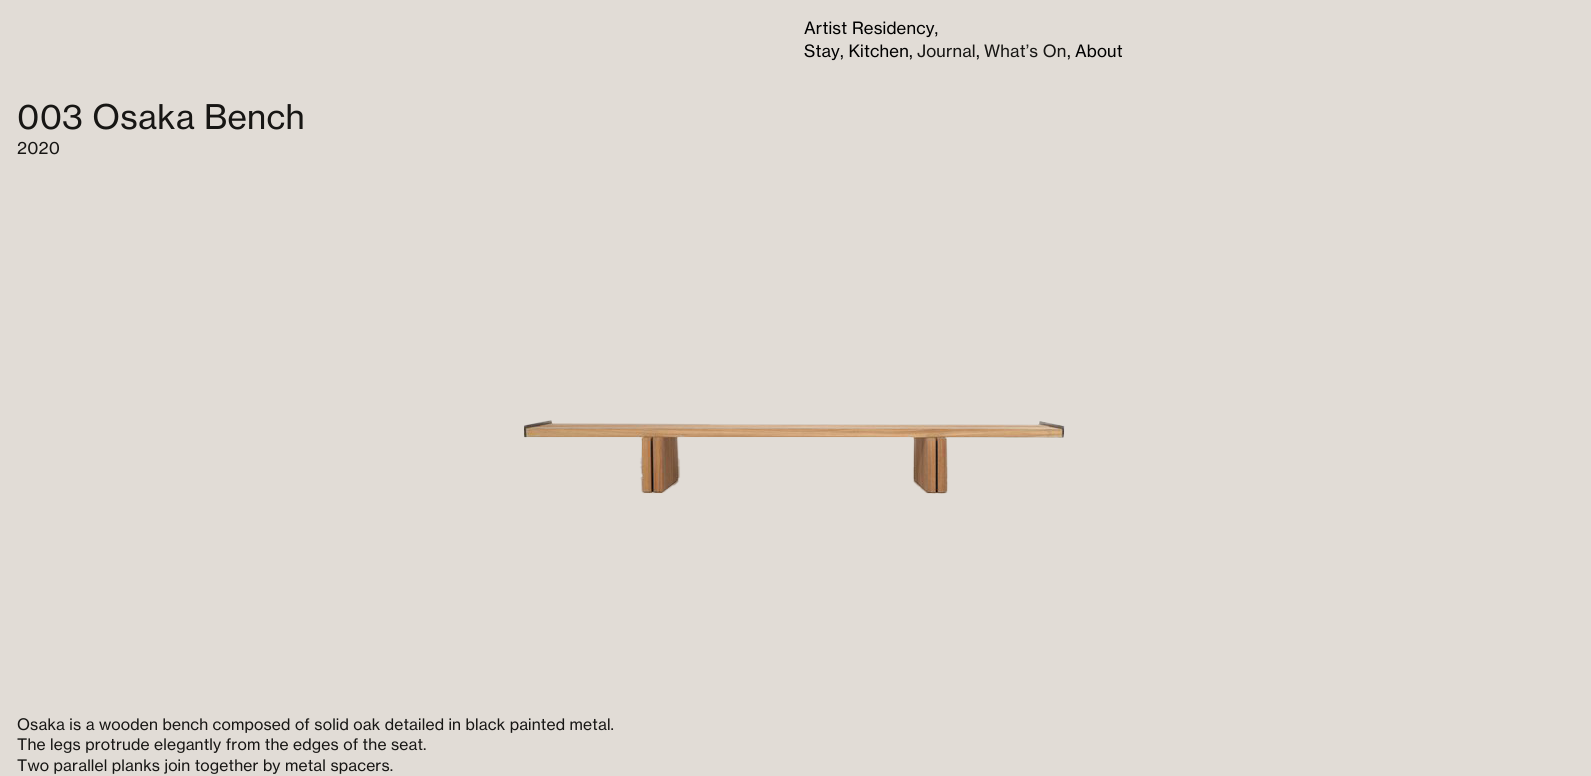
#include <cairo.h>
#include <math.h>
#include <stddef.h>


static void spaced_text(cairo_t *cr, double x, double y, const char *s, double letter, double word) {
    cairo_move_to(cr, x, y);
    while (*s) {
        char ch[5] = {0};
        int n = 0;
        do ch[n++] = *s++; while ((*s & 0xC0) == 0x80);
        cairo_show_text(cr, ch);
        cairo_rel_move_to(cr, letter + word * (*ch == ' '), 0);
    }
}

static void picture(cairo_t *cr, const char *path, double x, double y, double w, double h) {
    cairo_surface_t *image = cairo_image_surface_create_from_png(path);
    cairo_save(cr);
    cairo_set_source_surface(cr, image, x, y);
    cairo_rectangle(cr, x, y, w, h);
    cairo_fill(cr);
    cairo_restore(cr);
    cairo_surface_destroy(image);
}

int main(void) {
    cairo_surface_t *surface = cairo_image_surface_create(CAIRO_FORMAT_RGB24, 1591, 776);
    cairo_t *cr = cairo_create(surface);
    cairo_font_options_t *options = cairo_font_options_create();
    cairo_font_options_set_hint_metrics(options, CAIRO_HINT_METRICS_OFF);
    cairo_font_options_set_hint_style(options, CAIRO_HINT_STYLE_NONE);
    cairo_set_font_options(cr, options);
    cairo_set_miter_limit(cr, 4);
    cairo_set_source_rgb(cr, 0.882, 0.863, 0.839);
    cairo_paint(cr);
    cairo_select_font_face(cr, "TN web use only", CAIRO_FONT_SLANT_NORMAL, CAIRO_FONT_WEIGHT_NORMAL);
    cairo_set_font_size(cr, 16.75);
    cairo_set_source_rgb(cr, 0, 0, 0);
    spaced_text(cr, 804, 34, "Artist Residency,", 0.17, 0);
    spaced_text(cr, 804, 57, "Stay", 0.17, 0);
    spaced_text(cr, 840, 57, ", Kitchen", 0.17, 0);
    spaced_text(cr, 909, 57, ",", 0.17, 0);
    cairo_set_source_rgb(cr, 0.09, 0.086, 0.082);
    spaced_text(cr, 917, 57, "Journal", 0.17, 0);
    cairo_set_source_rgb(cr, 0, 0, 0);
    spaced_text(cr, 976, 57, ",", 0.17, 0);
    cairo_set_source_rgb(cr, 0.09, 0.086, 0.082);
    spaced_text(cr, 984, 57, "What’s On", 0.17, 0);
    cairo_set_source_rgb(cr, 0, 0, 0);
    spaced_text(cr, 1067, 57, ",", 0.17, 0);
    spaced_text(cr, 1075, 57, "About", 0.17, 0);
    cairo_set_font_size(cr, 33.5);
    cairo_set_source_rgb(cr, 0.09, 0.086, 0.082);
    spaced_text(cr, 17, 129, "003 Osaka Bench", 0.3, 0);
    cairo_set_font_size(cr, 16.75);
    spaced_text(cr, 17, 154, "2020", 0.17, 0);
    picture(cr, "img1.png", 524, 420, 541, 74);
    cairo_set_font_size(cr, 15.65);
    spaced_text(cr, 17, 730, "Osaka is a wooden bench composed of solid oak detailed in black painted metal.", 0.17, 0);
    spaced_text(cr, 17, 750, "The legs protrude elegantly from the edges of the seat.", 0.17, 0);
    spaced_text(cr, 17, 771, "Two parallel planks join together by metal spacers.", 0.17, 0);
    cairo_surface_write_to_png(surface, "page.png");
    cairo_font_options_destroy(options);
    cairo_destroy(cr);
    cairo_surface_destroy(surface);
    return 0;
}
